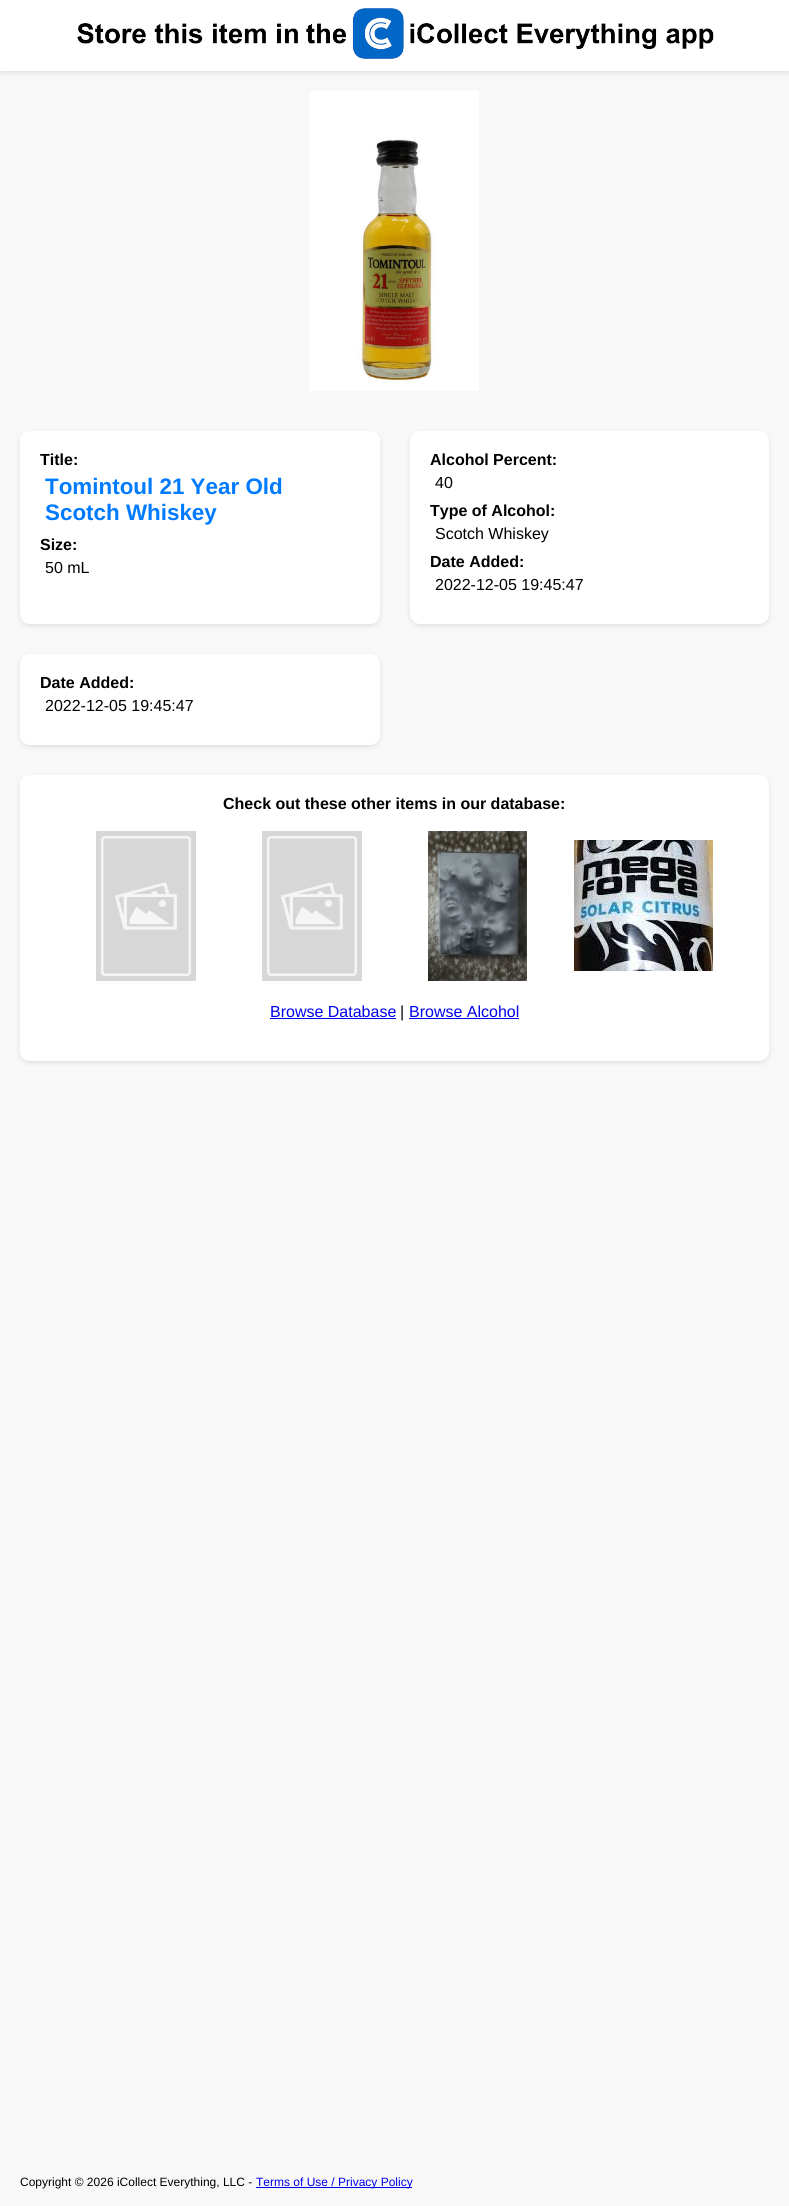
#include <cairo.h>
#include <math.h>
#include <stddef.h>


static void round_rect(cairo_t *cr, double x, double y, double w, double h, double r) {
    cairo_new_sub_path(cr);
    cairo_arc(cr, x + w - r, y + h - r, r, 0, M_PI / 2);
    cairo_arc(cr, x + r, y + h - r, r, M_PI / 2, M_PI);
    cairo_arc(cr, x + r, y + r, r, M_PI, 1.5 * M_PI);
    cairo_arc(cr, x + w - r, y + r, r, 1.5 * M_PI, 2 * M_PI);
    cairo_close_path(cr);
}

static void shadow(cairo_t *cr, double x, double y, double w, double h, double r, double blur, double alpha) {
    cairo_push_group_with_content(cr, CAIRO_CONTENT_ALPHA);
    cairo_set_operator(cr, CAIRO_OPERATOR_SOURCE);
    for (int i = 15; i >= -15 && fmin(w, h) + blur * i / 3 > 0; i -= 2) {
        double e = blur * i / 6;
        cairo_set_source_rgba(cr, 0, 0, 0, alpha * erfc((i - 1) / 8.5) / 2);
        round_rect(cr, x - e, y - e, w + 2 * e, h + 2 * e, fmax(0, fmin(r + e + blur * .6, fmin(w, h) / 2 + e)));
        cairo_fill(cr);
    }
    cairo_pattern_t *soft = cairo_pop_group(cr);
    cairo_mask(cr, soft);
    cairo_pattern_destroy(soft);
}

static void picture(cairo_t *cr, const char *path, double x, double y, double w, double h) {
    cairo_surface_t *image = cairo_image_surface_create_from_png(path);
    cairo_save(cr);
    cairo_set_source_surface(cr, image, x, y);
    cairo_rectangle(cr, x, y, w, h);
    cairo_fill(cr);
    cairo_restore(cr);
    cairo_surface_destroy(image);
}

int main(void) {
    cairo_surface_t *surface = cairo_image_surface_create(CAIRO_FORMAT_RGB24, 789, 2206);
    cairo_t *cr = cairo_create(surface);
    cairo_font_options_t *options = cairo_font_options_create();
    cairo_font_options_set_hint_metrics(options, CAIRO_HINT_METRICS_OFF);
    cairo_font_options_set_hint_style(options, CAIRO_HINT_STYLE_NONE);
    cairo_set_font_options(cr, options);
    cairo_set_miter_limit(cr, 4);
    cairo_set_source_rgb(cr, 0.969, 0.969, 0.969);
    cairo_paint(cr);
    cairo_set_source_rgb(cr, 0, 0, 0);
    shadow(cr, 0, 2, 789, 71, 0, 2.5, 0.1);
    cairo_set_source_rgb(cr, 1, 1, 1);
    cairo_rectangle(cr, 0, 0, 789, 71);
    cairo_fill(cr);
    picture(cr, "img1.png", 77, 8, 637, 51);
    picture(cr, "img2.png", 310, 91, 169, 300);
    cairo_set_source_rgb(cr, 0, 0, 0);
    shadow(cr, 20, 433, 360, 193, 10, 2.5, 0.1);
    cairo_set_source_rgb(cr, 1, 1, 1);
    round_rect(cr, 20, 431, 360, 193, 10);
    cairo_fill(cr);
    cairo_select_font_face(cr, "Liberation Sans", CAIRO_FONT_SLANT_NORMAL, CAIRO_FONT_WEIGHT_BOLD);
    cairo_set_font_size(cr, 16);
    cairo_set_source_rgb(cr, 0, 0, 0);
    cairo_move_to(cr, 40, 465);
    cairo_show_text(cr, "Title:");
    cairo_set_font_size(cr, 22.4);
    cairo_set_source_rgb(cr, 0, 0.482, 1);
    cairo_move_to(cr, 45, 494);
    cairo_show_text(cr, "Tomintoul 21 Year Old");
    cairo_move_to(cr, 45, 520);
    cairo_show_text(cr, "Scotch Whiskey");
    cairo_set_font_size(cr, 16);
    cairo_set_source_rgb(cr, 0, 0, 0);
    cairo_move_to(cr, 40, 550);
    cairo_show_text(cr, "Size:");
    cairo_select_font_face(cr, "Liberation Sans", CAIRO_FONT_SLANT_NORMAL, CAIRO_FONT_WEIGHT_NORMAL);
    cairo_move_to(cr, 45, 573);
    cairo_show_text(cr, "50 mL");
    cairo_set_source_rgb(cr, 0, 0, 0);
    shadow(cr, 410, 433, 359, 193, 10, 2.5, 0.1);
    cairo_set_source_rgb(cr, 1, 1, 1);
    round_rect(cr, 410, 431, 359, 193, 10);
    cairo_fill(cr);
    cairo_select_font_face(cr, "Liberation Sans", CAIRO_FONT_SLANT_NORMAL, CAIRO_FONT_WEIGHT_BOLD);
    cairo_set_source_rgb(cr, 0, 0, 0);
    cairo_move_to(cr, 430, 465);
    cairo_show_text(cr, "Alcohol Percent:");
    cairo_select_font_face(cr, "Liberation Sans", CAIRO_FONT_SLANT_NORMAL, CAIRO_FONT_WEIGHT_NORMAL);
    cairo_move_to(cr, 435, 488);
    cairo_show_text(cr, "40");
    cairo_select_font_face(cr, "Liberation Sans", CAIRO_FONT_SLANT_NORMAL, CAIRO_FONT_WEIGHT_BOLD);
    cairo_move_to(cr, 430, 516);
    cairo_show_text(cr, "Type of Alcohol:");
    cairo_select_font_face(cr, "Liberation Sans", CAIRO_FONT_SLANT_NORMAL, CAIRO_FONT_WEIGHT_NORMAL);
    cairo_move_to(cr, 435, 539);
    cairo_show_text(cr, "Scotch Whiskey");
    cairo_select_font_face(cr, "Liberation Sans", CAIRO_FONT_SLANT_NORMAL, CAIRO_FONT_WEIGHT_BOLD);
    cairo_move_to(cr, 430, 567);
    cairo_show_text(cr, "Date Added:");
    cairo_select_font_face(cr, "Liberation Sans", CAIRO_FONT_SLANT_NORMAL, CAIRO_FONT_WEIGHT_NORMAL);
    cairo_move_to(cr, 435, 590);
    cairo_show_text(cr, "2022-12-05 19:45:47");
    cairo_set_source_rgb(cr, 0, 0, 0);
    shadow(cr, 20, 656, 360, 91, 10, 2.5, 0.1);
    cairo_set_source_rgb(cr, 1, 1, 1);
    round_rect(cr, 20, 654, 360, 91, 10);
    cairo_fill(cr);
    cairo_select_font_face(cr, "Liberation Sans", CAIRO_FONT_SLANT_NORMAL, CAIRO_FONT_WEIGHT_BOLD);
    cairo_set_source_rgb(cr, 0, 0, 0);
    cairo_move_to(cr, 40, 688);
    cairo_show_text(cr, "Date Added:");
    cairo_select_font_face(cr, "Liberation Sans", CAIRO_FONT_SLANT_NORMAL, CAIRO_FONT_WEIGHT_NORMAL);
    cairo_move_to(cr, 45, 711);
    cairo_show_text(cr, "2022-12-05 19:45:47");
    cairo_set_source_rgb(cr, 0, 0, 0);
    shadow(cr, 20, 777, 749, 286, 10, 2.5, 0.1);
    cairo_set_source_rgb(cr, 1, 1, 1);
    round_rect(cr, 20, 775, 749, 286, 10);
    cairo_fill(cr);
    cairo_select_font_face(cr, "Liberation Sans", CAIRO_FONT_SLANT_NORMAL, CAIRO_FONT_WEIGHT_BOLD);
    cairo_set_source_rgb(cr, 0, 0, 0);
    cairo_move_to(cr, 223, 809);
    cairo_show_text(cr, "Check out these other items in our database:");
    picture(cr, "img3.png", 96, 831, 100, 150);
    picture(cr, "img3.png", 262, 831, 100, 150);
    picture(cr, "img4.png", 428, 831, 99, 150);
    picture(cr, "img5.png", 574, 840, 139, 131);
    cairo_select_font_face(cr, "Liberation Sans", CAIRO_FONT_SLANT_NORMAL, CAIRO_FONT_WEIGHT_NORMAL);
    cairo_set_source_rgb(cr, 0, 0, 0.933);
    cairo_move_to(cr, 270, 1017);
    cairo_show_text(cr, "Browse Database");
    cairo_rectangle(cr, 270, 1018, 126, 1);
    cairo_fill(cr);
    cairo_set_source_rgb(cr, 0, 0, 0);
    cairo_move_to(cr, 400, 1017);
    cairo_show_text(cr, "|");
    cairo_set_source_rgb(cr, 0, 0, 0.933);
    cairo_move_to(cr, 409, 1017);
    cairo_show_text(cr, "Browse Alcohol");
    cairo_rectangle(cr, 409, 1018, 110, 1);
    cairo_fill(cr);
    cairo_set_font_size(cr, 12);
    cairo_set_source_rgb(cr, 0, 0, 0);
    cairo_move_to(cr, 20, 2186);
    cairo_show_text(cr, "Copyright © 2026 iCollect Everything, LLC -");
    cairo_set_source_rgb(cr, 0, 0, 0.933);
    cairo_rectangle(cr, 256, 2187, 156, 1);
    cairo_fill(cr);
    cairo_move_to(cr, 256, 2186);
    cairo_show_text(cr, "Terms of Use / Privacy Policy");
    cairo_surface_write_to_png(surface, "page.png");
    cairo_font_options_destroy(options);
    cairo_destroy(cr);
    cairo_surface_destroy(surface);
    return 0;
}
